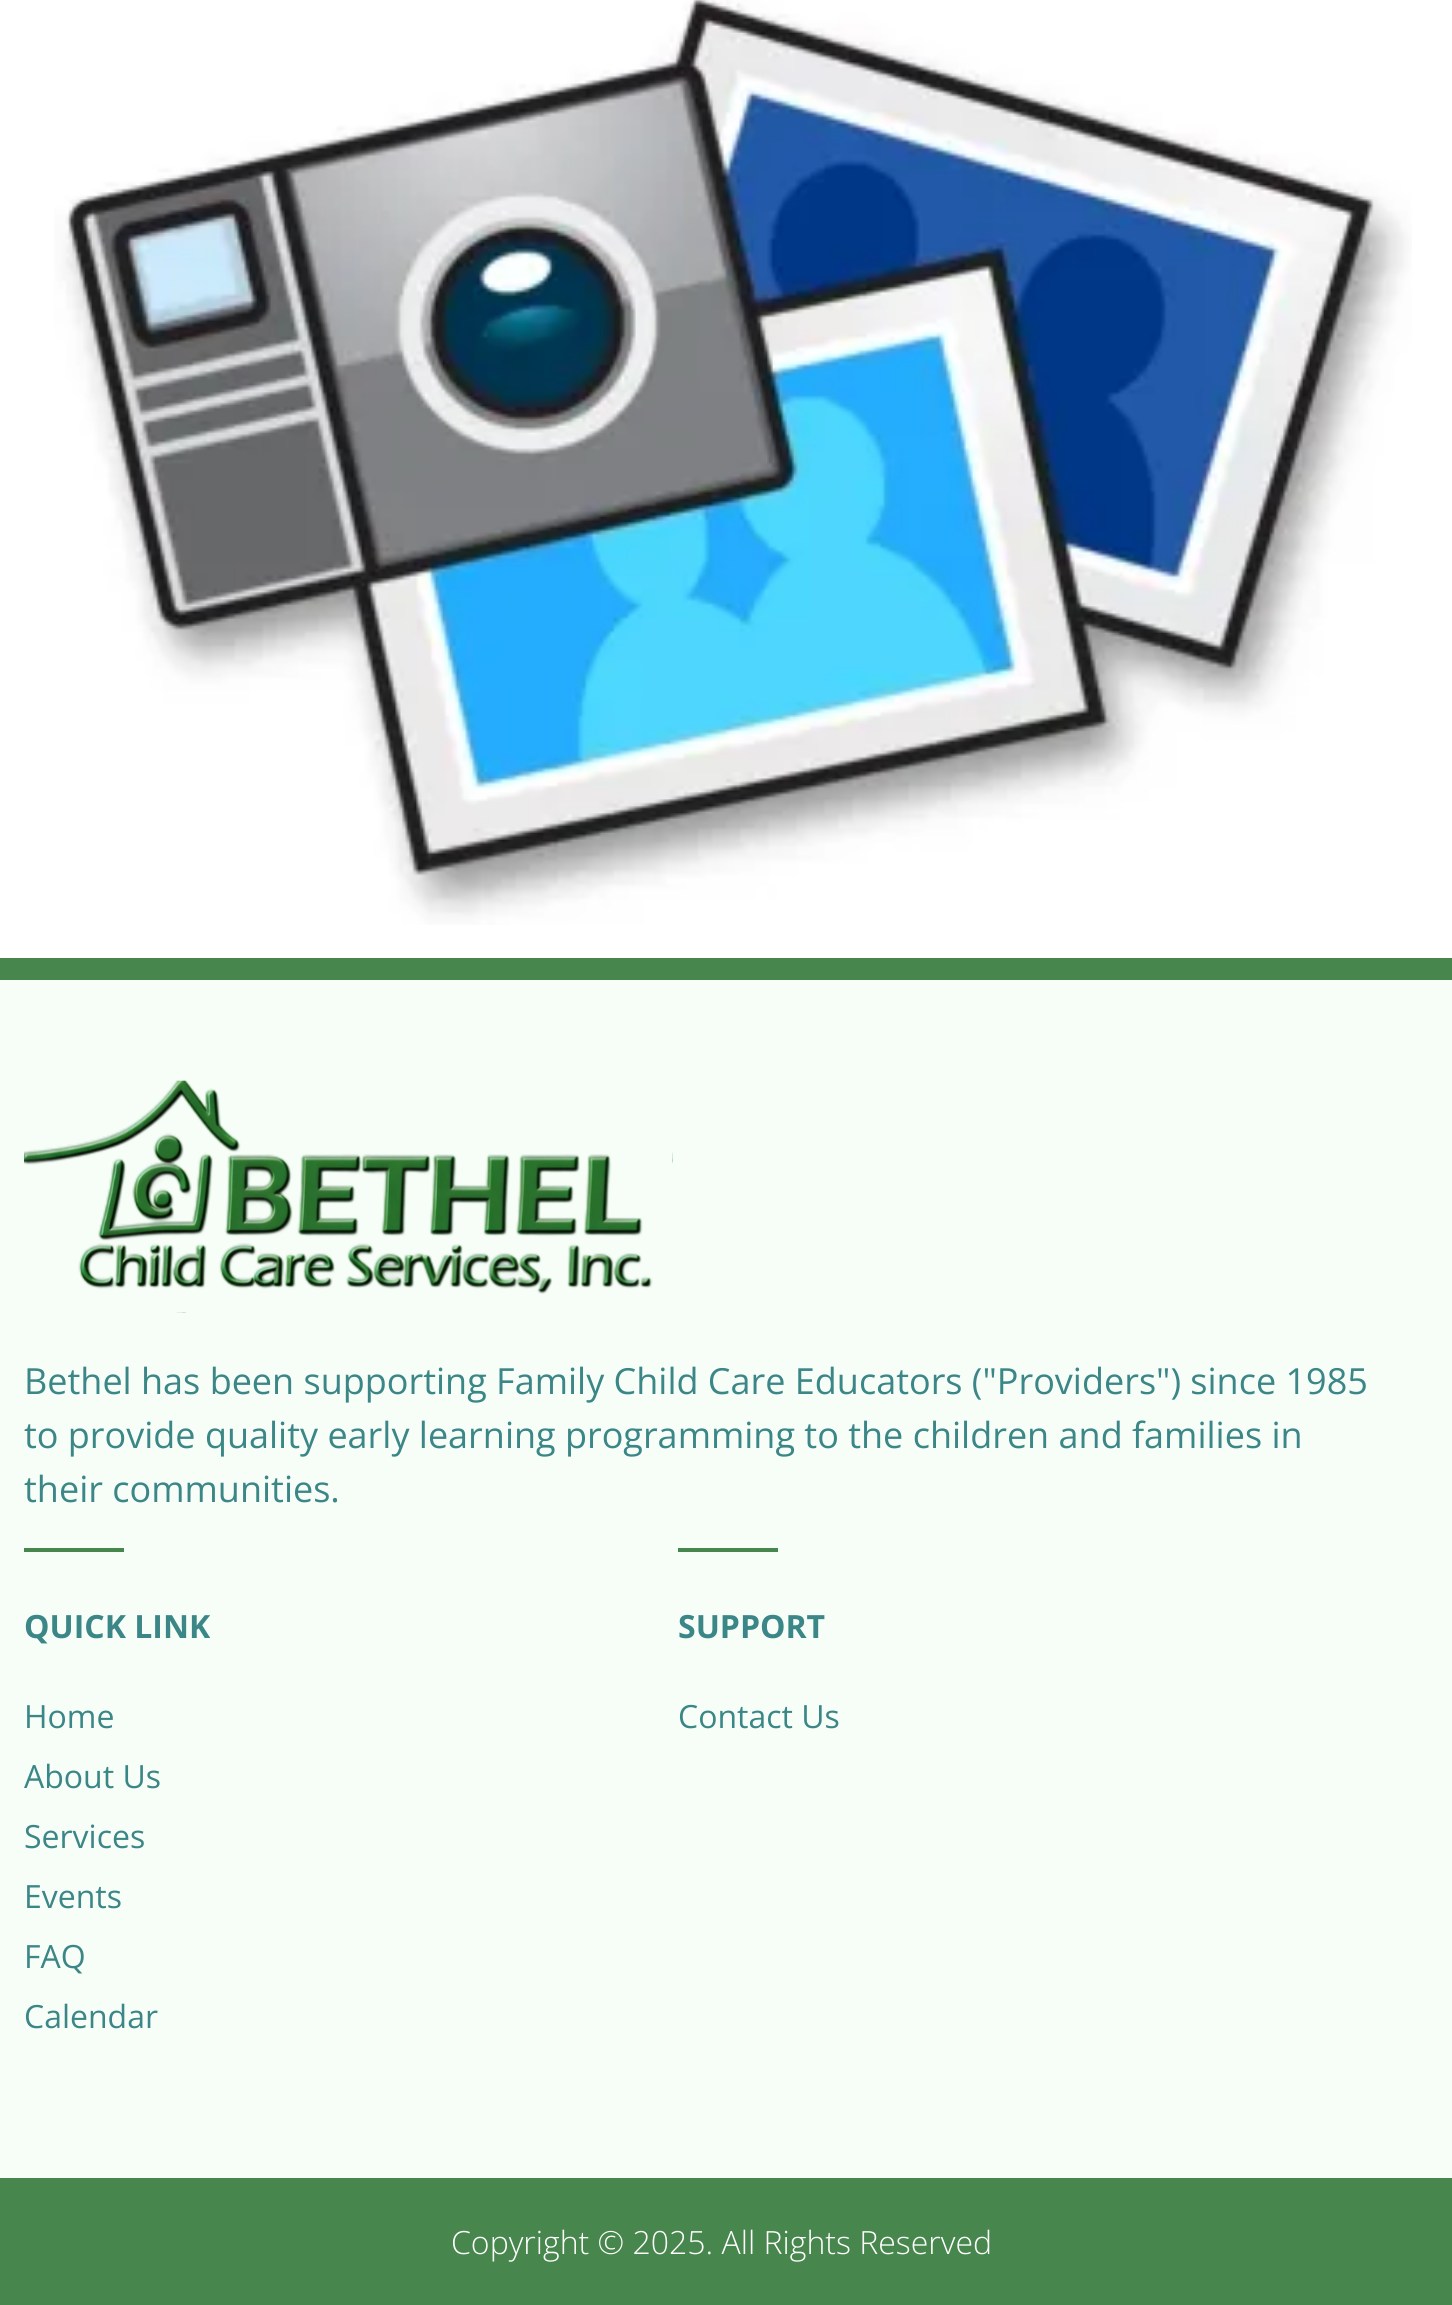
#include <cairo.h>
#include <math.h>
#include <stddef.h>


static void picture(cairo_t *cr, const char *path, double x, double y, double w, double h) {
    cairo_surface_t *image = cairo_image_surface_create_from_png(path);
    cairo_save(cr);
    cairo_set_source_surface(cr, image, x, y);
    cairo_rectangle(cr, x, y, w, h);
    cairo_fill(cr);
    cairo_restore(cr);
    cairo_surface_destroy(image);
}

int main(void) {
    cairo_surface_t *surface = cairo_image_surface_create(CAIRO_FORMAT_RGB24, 1452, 2305);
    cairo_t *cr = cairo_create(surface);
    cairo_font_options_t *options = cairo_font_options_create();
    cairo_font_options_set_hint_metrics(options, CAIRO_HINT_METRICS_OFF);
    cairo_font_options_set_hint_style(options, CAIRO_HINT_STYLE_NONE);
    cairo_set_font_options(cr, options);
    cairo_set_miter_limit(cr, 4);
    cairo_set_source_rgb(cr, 1, 1, 1);
    cairo_paint(cr);
    picture(cr, "img1.png", 54, 0, 1358, 925);
    cairo_set_source_rgb(cr, 0.965, 0.996, 0.969);
    cairo_rectangle(cr, 0, 980, 1452, 1198);
    cairo_fill(cr);
    cairo_set_source_rgb(cr, 0.278, 0.525, 0.302);
    cairo_rectangle(cr, 0, 958, 1452, 22);
    cairo_fill(cr);
    picture(cr, "img2.png", 24, 1080, 649, 233);
    cairo_select_font_face(cr, "Open Sans", CAIRO_FONT_SLANT_NORMAL, CAIRO_FONT_WEIGHT_NORMAL);
    cairo_set_font_size(cr, 36);
    cairo_set_source_rgb(cr, 0.231, 0.525, 0.525);
    cairo_move_to(cr, 24, 1394);
    cairo_show_text(cr, "Bethel has been supporting Family Child Care Educators (\"Providers\") since 1985");
    cairo_move_to(cr, 24, 1448);
    cairo_show_text(cr, "to provide quality early learning programming to the children and families in");
    cairo_move_to(cr, 24, 1502);
    cairo_show_text(cr, "their communities.");
    cairo_set_source_rgb(cr, 0.278, 0.525, 0.302);
    cairo_rectangle(cr, 24, 1548, 100, 4);
    cairo_fill(cr);
    cairo_select_font_face(cr, "Open Sans", CAIRO_FONT_SLANT_NORMAL, CAIRO_FONT_WEIGHT_BOLD);
    cairo_set_font_size(cr, 32);
    cairo_set_source_rgb(cr, 0.231, 0.525, 0.525);
    cairo_move_to(cr, 24, 1638);
    cairo_show_text(cr, "QUICK LINK");
    cairo_select_font_face(cr, "Open Sans", CAIRO_FONT_SLANT_NORMAL, CAIRO_FONT_WEIGHT_NORMAL);
    cairo_move_to(cr, 24, 1728);
    cairo_show_text(cr, "Home");
    cairo_move_to(cr, 24, 1788);
    cairo_show_text(cr, "About Us");
    cairo_move_to(cr, 24, 1848);
    cairo_show_text(cr, "Services");
    cairo_move_to(cr, 24, 1908);
    cairo_show_text(cr, "Events");
    cairo_move_to(cr, 24, 1968);
    cairo_show_text(cr, "FAQ");
    cairo_move_to(cr, 24, 2028);
    cairo_show_text(cr, "Calendar");
    cairo_set_source_rgb(cr, 0.278, 0.525, 0.302);
    cairo_rectangle(cr, 678, 1548, 100, 4);
    cairo_fill(cr);
    cairo_select_font_face(cr, "Open Sans", CAIRO_FONT_SLANT_NORMAL, CAIRO_FONT_WEIGHT_BOLD);
    cairo_set_source_rgb(cr, 0.231, 0.525, 0.525);
    cairo_move_to(cr, 678, 1638);
    cairo_show_text(cr, "SUPPORT");
    cairo_select_font_face(cr, "Open Sans", CAIRO_FONT_SLANT_NORMAL, CAIRO_FONT_WEIGHT_NORMAL);
    cairo_move_to(cr, 678, 1728);
    cairo_show_text(cr, "Contact Us");
    cairo_set_source_rgb(cr, 0.278, 0.525, 0.302);
    cairo_rectangle(cr, 0, 2178, 1452, 127);
    cairo_fill(cr);
    cairo_select_font_face(cr, "Open Sans Light", CAIRO_FONT_SLANT_NORMAL, CAIRO_FONT_WEIGHT_NORMAL);
    cairo_set_source_rgb(cr, 1, 1, 1);
    cairo_move_to(cr, 451, 2254);
    cairo_show_text(cr, "Copyright © 2025. All Rights Reserved");
    cairo_surface_write_to_png(surface, "page.png");
    cairo_font_options_destroy(options);
    cairo_destroy(cr);
    cairo_surface_destroy(surface);
    return 0;
}
